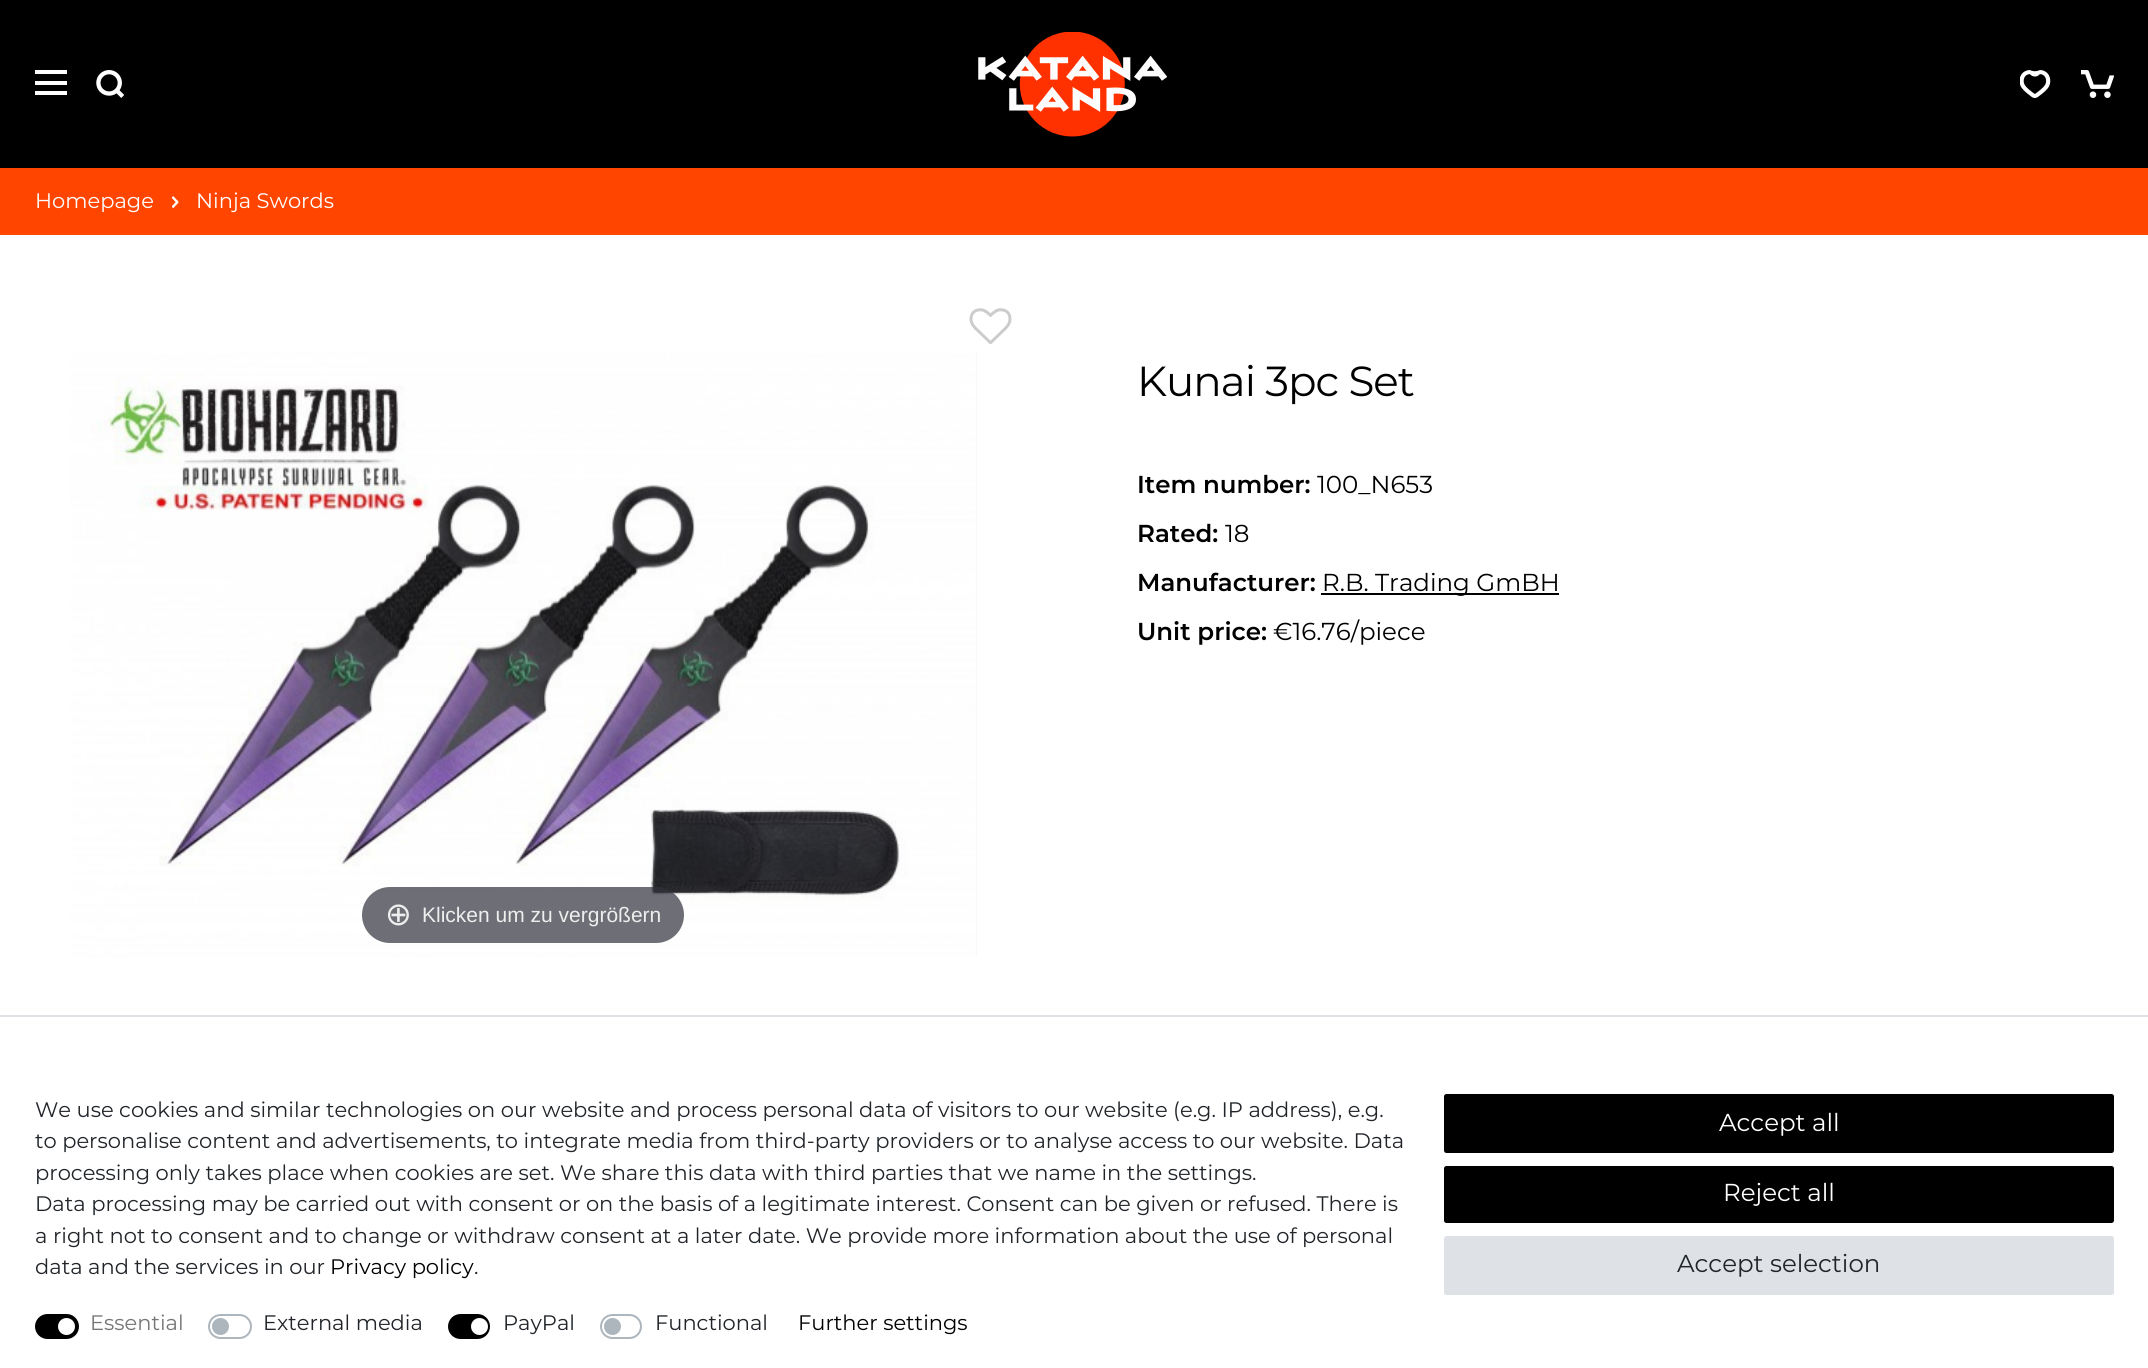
#include <cairo.h>
#include <math.h>
#include <stddef.h>


static void spaced_text(cairo_t *cr, double x, double y, const char *s, double letter, double word) {
    cairo_move_to(cr, x, y);
    while (*s) {
        char ch[5] = {0};
        int n = 0;
        do ch[n++] = *s++; while ((*s & 0xC0) == 0x80);
        cairo_show_text(cr, ch);
        cairo_rel_move_to(cr, letter + word * (*ch == ' '), 0);
    }
}

static void round_rect(cairo_t *cr, double x, double y, double w, double h, double r) {
    cairo_new_sub_path(cr);
    cairo_arc(cr, x + w - r, y + h - r, r, 0, M_PI / 2);
    cairo_arc(cr, x + r, y + h - r, r, M_PI / 2, M_PI);
    cairo_arc(cr, x + r, y + r, r, M_PI, 1.5 * M_PI);
    cairo_arc(cr, x + w - r, y + r, r, 1.5 * M_PI, 2 * M_PI);
    cairo_close_path(cr);
}

static void picture(cairo_t *cr, const char *path, double x, double y, double w, double h) {
    cairo_surface_t *image = cairo_image_surface_create_from_png(path);
    cairo_save(cr);
    cairo_set_source_surface(cr, image, x, y);
    cairo_rectangle(cr, x, y, w, h);
    cairo_fill(cr);
    cairo_restore(cr);
    cairo_surface_destroy(image);
}

int main(void) {
    cairo_surface_t *surface = cairo_image_surface_create(CAIRO_FORMAT_RGB24, 2148, 1368);
    cairo_t *cr = cairo_create(surface);
    cairo_font_options_t *options = cairo_font_options_create();
    cairo_font_options_set_hint_metrics(options, CAIRO_HINT_METRICS_OFF);
    cairo_font_options_set_hint_style(options, CAIRO_HINT_STYLE_NONE);
    cairo_set_font_options(cr, options);
    cairo_set_miter_limit(cr, 4);
    cairo_set_source_rgb(cr, 1, 1, 1);
    cairo_paint(cr);
    cairo_set_source_rgb(cr, 0, 0, 0);
    cairo_rectangle(cr, 0, 0, 2148, 168);
    cairo_fill(cr);
    cairo_set_source_rgb(cr, 1, 1, 1);
    cairo_rectangle(cr, 35, 81, 32, 4);
    cairo_fill(cr);
    cairo_rectangle(cr, 35, 70, 32, 4);
    cairo_fill(cr);
    cairo_rectangle(cr, 35, 91, 32, 4);
    cairo_fill(cr);
    picture(cr, "img1.png", 96, 70, 28, 28);
    picture(cr, "img2.png", 978, 32, 189, 105);
    picture(cr, "img3.png", 2020, 70, 31, 28);
    picture(cr, "img4.png", 2081, 70, 33, 28);
    cairo_set_source_rgb(cr, 1, 0.271, 0);
    cairo_rectangle(cr, 0, 168, 2148, 67);
    cairo_fill(cr);
    cairo_select_font_face(cr, "Montserrat", CAIRO_FONT_SLANT_NORMAL, CAIRO_FONT_WEIGHT_NORMAL);
    cairo_set_font_size(cr, 21);
    cairo_set_source_rgb(cr, 1, 1, 1);
    cairo_move_to(cr, 35, 208);
    cairo_show_text(cr, "Homepage");
    picture(cr, "img5.png", 172, 196, 7, 12);
    cairo_move_to(cr, 196, 208);
    cairo_show_text(cr, "Ninja Swords");
    cairo_set_font_size(cr, 42);
    cairo_set_source_rgb(cr, 0, 0, 0);
    spaced_text(cr, 1137, 396, "Kunai 3pc Set", -0.9, 0);
    cairo_select_font_face(cr, "Montserrat SemiBold", CAIRO_FONT_SLANT_NORMAL, CAIRO_FONT_WEIGHT_NORMAL);
    cairo_set_font_size(cr, 24.5);
    cairo_move_to(cr, 1137, 493);
    cairo_show_text(cr, "Item number:");
    cairo_select_font_face(cr, "Montserrat", CAIRO_FONT_SLANT_NORMAL, CAIRO_FONT_WEIGHT_NORMAL);
    cairo_move_to(cr, 1317, 493);
    cairo_show_text(cr, "100_N653");
    cairo_select_font_face(cr, "Montserrat SemiBold", CAIRO_FONT_SLANT_NORMAL, CAIRO_FONT_WEIGHT_NORMAL);
    cairo_move_to(cr, 1137, 542);
    cairo_show_text(cr, "Rated:");
    cairo_select_font_face(cr, "Montserrat", CAIRO_FONT_SLANT_NORMAL, CAIRO_FONT_WEIGHT_NORMAL);
    cairo_move_to(cr, 1225, 542);
    cairo_show_text(cr, "18");
    cairo_select_font_face(cr, "Montserrat SemiBold", CAIRO_FONT_SLANT_NORMAL, CAIRO_FONT_WEIGHT_NORMAL);
    cairo_move_to(cr, 1137, 591);
    cairo_show_text(cr, "Manufacturer:");
    cairo_rectangle(cr, 1321, 593, 238, 2);
    cairo_fill(cr);
    cairo_select_font_face(cr, "Montserrat", CAIRO_FONT_SLANT_NORMAL, CAIRO_FONT_WEIGHT_NORMAL);
    cairo_move_to(cr, 1322, 591);
    cairo_show_text(cr, "R.B. Trading GmBH");
    cairo_select_font_face(cr, "Montserrat SemiBold", CAIRO_FONT_SLANT_NORMAL, CAIRO_FONT_WEIGHT_NORMAL);
    cairo_move_to(cr, 1137, 640);
    cairo_show_text(cr, "Unit price:");
    cairo_select_font_face(cr, "Montserrat", CAIRO_FONT_SLANT_NORMAL, CAIRO_FONT_WEIGHT_NORMAL);
    cairo_move_to(cr, 1273, 640);
    cairo_show_text(cr, "€16.76/piece");
    picture(cr, "img6.png", 969, 308, 43, 37);
    cairo_set_source_rgb(cr, 0.976, 0.976, 0.976);
    cairo_rectangle(cr, 70, 352, 907, 605);
    cairo_fill(cr);
    picture(cr, "img7.png", 70, 352, 906, 605);
    cairo_set_source_rgba(cr, 0.192, 0.2, 0.239, 0.7);
    round_rect(cr, 362, 887, 322, 56, 28);
    cairo_fill(cr);
    cairo_select_font_face(cr, "DejaVu Sans", CAIRO_FONT_SLANT_NORMAL, CAIRO_FONT_WEIGHT_NORMAL);
    cairo_set_font_size(cr, 32);
    cairo_set_source_rgb(cr, 0.933, 0.933, 0.933);
    cairo_move_to(cr, 385, 925);
    cairo_show_text(cr, "⊕");
    cairo_select_font_face(cr, "Liberation Sans", CAIRO_FONT_SLANT_NORMAL, CAIRO_FONT_WEIGHT_NORMAL);
    cairo_set_font_size(cr, 21);
    cairo_move_to(cr, 422, 922);
    cairo_show_text(cr, "Klicken um zu vergrößern");
    cairo_set_source_rgb(cr, 0.871, 0.886, 0.902);
    cairo_rectangle(cr, 0, 1015, 2148, 2);
    cairo_fill(cr);
    cairo_select_font_face(cr, "Montserrat", CAIRO_FONT_SLANT_NORMAL, CAIRO_FONT_WEIGHT_NORMAL);
    cairo_set_source_rgb(cr, 0.129, 0.145, 0.161);
    cairo_move_to(cr, 35, 1117);
    cairo_show_text(cr, "We use cookies and similar technologies on our website and process personal data of visitors to our website (e.g. IP address), e.g.");
    cairo_move_to(cr, 35, 1148);
    cairo_show_text(cr, "to personalise content and advertisements, to integrate media from third-party providers or to analyse access to our website. Data");
    cairo_move_to(cr, 35, 1180);
    cairo_show_text(cr, "processing only takes place when cookies are set. We share this data with third parties that we name in the settings.");
    cairo_move_to(cr, 35, 1211);
    cairo_show_text(cr, "Data processing may be carried out with consent or on the basis of a legitimate interest. Consent can be given or refused. There is");
    cairo_move_to(cr, 35, 1243);
    cairo_show_text(cr, "a right not to consent and to change or withdraw consent at a later date. We provide more information about the use of personal");
    cairo_move_to(cr, 35, 1274);
    cairo_show_text(cr, "data and the services in our");
    cairo_set_source_rgb(cr, 0, 0, 0);
    cairo_move_to(cr, 330, 1274);
    cairo_show_text(cr, "Privacy policy");
    cairo_set_source_rgb(cr, 0.129, 0.145, 0.161);
    cairo_move_to(cr, 474, 1274);
    cairo_show_text(cr, ".");
    cairo_set_source_rgb(cr, 0, 0, 0);
    round_rect(cr, 36, 1315, 42, 23, 11.5);
    cairo_fill_preserve(cr);
    cairo_stroke(cr);
    cairo_set_source_rgb(cr, 0.463, 0.463, 0.463);
    cairo_move_to(cr, 90, 1330);
    cairo_show_text(cr, "Essential");
    cairo_set_source_rgb(cr, 1, 1, 1);
    cairo_new_path(cr);
    cairo_arc(cr, 66.5, 1326.5, 8.5, 0, 2 * M_PI);
    cairo_fill(cr);
    round_rect(cr, 209, 1315, 42, 23, 11.5);
    cairo_set_source_rgb(cr, 0.678, 0.71, 0.741);
    cairo_stroke(cr);
    cairo_set_source_rgb(cr, 0.129, 0.145, 0.161);
    cairo_move_to(cr, 263, 1330);
    cairo_show_text(cr, "External media");
    cairo_set_source_rgb(cr, 0.678, 0.71, 0.741);
    cairo_new_path(cr);
    cairo_arc(cr, 220.5, 1326.5, 8.5, 0, 2 * M_PI);
    cairo_fill(cr);
    cairo_set_source_rgb(cr, 0, 0, 0);
    round_rect(cr, 449, 1315, 40, 23, 11.5);
    cairo_fill_preserve(cr);
    cairo_stroke(cr);
    cairo_set_source_rgb(cr, 0.129, 0.145, 0.161);
    cairo_move_to(cr, 503, 1330);
    cairo_show_text(cr, "PayPal");
    cairo_set_source_rgb(cr, 1, 1, 1);
    cairo_new_path(cr);
    cairo_arc(cr, 479.5, 1326.5, 8.5, 0, 2 * M_PI);
    cairo_fill(cr);
    round_rect(cr, 601, 1315, 40, 23, 11.5);
    cairo_set_source_rgb(cr, 0.678, 0.71, 0.741);
    cairo_stroke(cr);
    cairo_set_source_rgb(cr, 0.129, 0.145, 0.161);
    cairo_move_to(cr, 655, 1330);
    cairo_show_text(cr, "Functional");
    cairo_set_source_rgb(cr, 0.678, 0.71, 0.741);
    cairo_new_path(cr);
    cairo_arc(cr, 612.5, 1326.5, 8.5, 0, 2 * M_PI);
    cairo_fill(cr);
    cairo_set_source_rgb(cr, 0, 0, 0);
    cairo_move_to(cr, 798, 1330);
    cairo_show_text(cr, "Further settings");
    round_rect(cr, 1445, 1095, 668, 57, 1.5);
    cairo_fill_preserve(cr);
    cairo_stroke(cr);
    cairo_set_font_size(cr, 24.5);
    cairo_set_source_rgb(cr, 1, 1, 1);
    cairo_move_to(cr, 1719, 1131);
    cairo_show_text(cr, "Accept all");
    cairo_set_source_rgb(cr, 0, 0, 0);
    round_rect(cr, 1445, 1167, 668, 55, 1.5);
    cairo_fill_preserve(cr);
    cairo_stroke(cr);
    cairo_set_source_rgb(cr, 1, 1, 1);
    cairo_move_to(cr, 1723, 1201);
    cairo_show_text(cr, "Reject all");
    cairo_set_source_rgb(cr, 0.871, 0.886, 0.902);
    round_rect(cr, 1445, 1237, 668, 57, 1.5);
    cairo_fill_preserve(cr);
    cairo_stroke(cr);
    cairo_set_source_rgb(cr, 0.129, 0.145, 0.161);
    cairo_move_to(cr, 1677, 1272);
    cairo_show_text(cr, "Accept selection");
    cairo_surface_write_to_png(surface, "page.png");
    cairo_font_options_destroy(options);
    cairo_destroy(cr);
    cairo_surface_destroy(surface);
    return 0;
}
